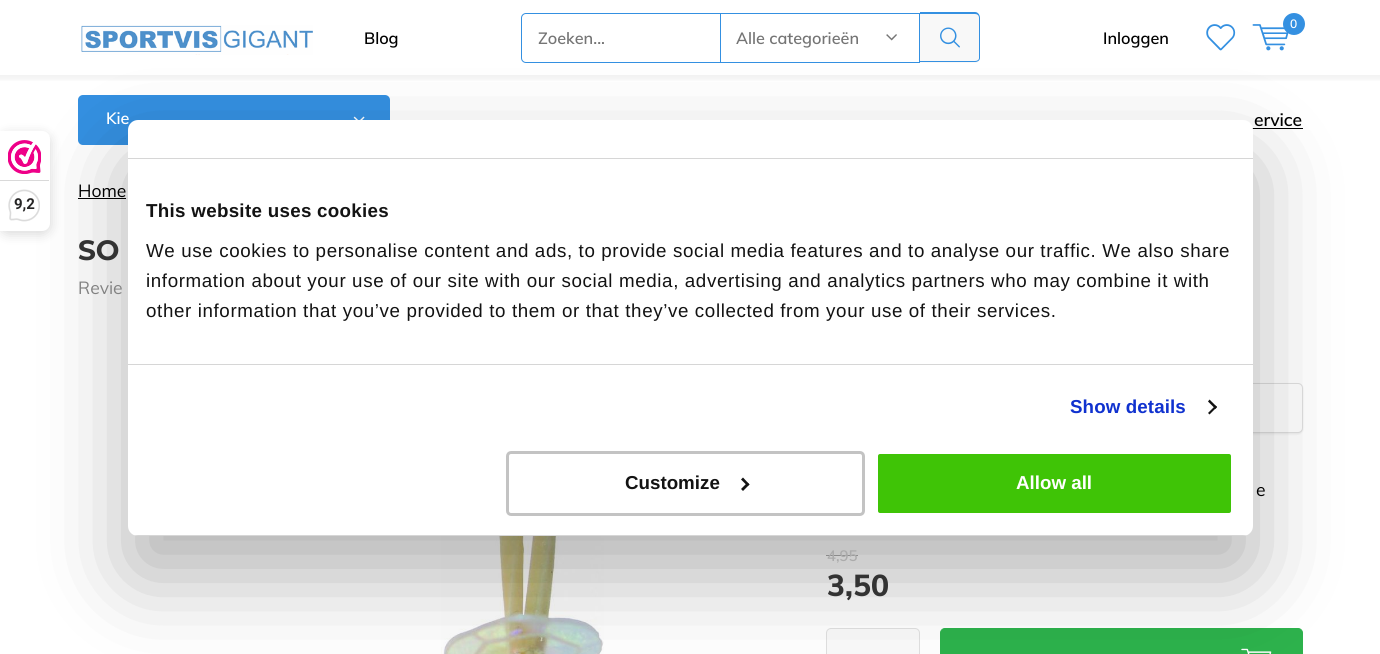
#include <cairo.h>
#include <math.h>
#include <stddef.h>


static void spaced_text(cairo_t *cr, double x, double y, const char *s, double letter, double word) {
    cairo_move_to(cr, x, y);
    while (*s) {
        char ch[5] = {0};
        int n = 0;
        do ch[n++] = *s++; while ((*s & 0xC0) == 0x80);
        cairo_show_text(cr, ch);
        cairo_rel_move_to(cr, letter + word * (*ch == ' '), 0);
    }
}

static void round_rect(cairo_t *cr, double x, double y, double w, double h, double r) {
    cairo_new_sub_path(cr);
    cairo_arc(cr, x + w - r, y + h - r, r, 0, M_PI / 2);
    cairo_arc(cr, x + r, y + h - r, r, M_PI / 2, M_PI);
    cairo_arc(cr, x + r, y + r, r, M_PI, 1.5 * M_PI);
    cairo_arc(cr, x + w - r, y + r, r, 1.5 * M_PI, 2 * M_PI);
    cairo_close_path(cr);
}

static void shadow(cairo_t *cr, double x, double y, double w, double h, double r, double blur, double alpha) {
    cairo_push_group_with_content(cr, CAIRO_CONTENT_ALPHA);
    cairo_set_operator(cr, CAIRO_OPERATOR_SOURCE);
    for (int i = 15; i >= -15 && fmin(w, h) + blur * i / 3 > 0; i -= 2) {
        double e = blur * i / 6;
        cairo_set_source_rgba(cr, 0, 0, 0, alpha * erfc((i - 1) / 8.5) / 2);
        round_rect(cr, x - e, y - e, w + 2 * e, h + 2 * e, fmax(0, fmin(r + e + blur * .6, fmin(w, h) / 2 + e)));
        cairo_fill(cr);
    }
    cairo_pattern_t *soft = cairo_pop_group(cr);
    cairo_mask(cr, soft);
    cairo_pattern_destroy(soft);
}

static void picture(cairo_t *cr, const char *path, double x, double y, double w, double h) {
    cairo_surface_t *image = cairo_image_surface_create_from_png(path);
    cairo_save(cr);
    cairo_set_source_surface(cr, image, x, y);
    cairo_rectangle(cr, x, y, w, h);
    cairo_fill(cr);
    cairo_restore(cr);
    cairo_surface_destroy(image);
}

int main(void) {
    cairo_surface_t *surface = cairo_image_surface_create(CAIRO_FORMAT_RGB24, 1380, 654);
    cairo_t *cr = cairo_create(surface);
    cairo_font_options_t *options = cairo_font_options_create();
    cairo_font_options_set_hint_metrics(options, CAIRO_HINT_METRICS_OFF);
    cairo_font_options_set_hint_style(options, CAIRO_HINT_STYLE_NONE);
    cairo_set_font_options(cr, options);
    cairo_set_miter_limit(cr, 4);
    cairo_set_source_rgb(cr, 1, 1, 1);
    cairo_paint(cr);
    cairo_set_source_rgb(cr, 0, 0, 0);
    shadow(cr, 0, 134, 50, 100, 8, 6, 0.15);
    cairo_save(cr);
    cairo_rectangle(cr, 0, 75, 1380, 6);
    cairo_clip(cr);
    shadow(cr, -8, 5, 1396, 75, 0, 2.5, 0.05);
    cairo_restore(cr);
    picture(cr, "img3.png", 81, 25, 232, 30);
    cairo_rectangle(cr, 720.5, 13.5, 199, 49);
    cairo_set_source_rgb(cr, 0.204, 0.565, 0.882);
    cairo_set_line_width(cr, 1);
    cairo_stroke(cr);
    cairo_set_source_rgb(cr, 1, 1, 1);
    cairo_new_path(cr);
    cairo_move_to(cr, 526, 13.5);
    cairo_line_to(cr, 720.5, 13.5);
    cairo_line_to(cr, 720.5, 62.5);
    cairo_line_to(cr, 526, 62.5);
    cairo_curve_to(cr, 523.5, 62.5, 521.5, 60.5, 521.5, 58);
    cairo_line_to(cr, 521.5, 18);
    cairo_curve_to(cr, 521.5, 15.5, 523.5, 13.5, 526, 13.5);
    cairo_close_path(cr);
    cairo_fill_preserve(cr);
    cairo_set_source_rgb(cr, 0.204, 0.565, 0.882);
    cairo_stroke(cr);
    picture(cr, "img4.png", 886, 34, 11, 7);
    cairo_set_source_rgb(cr, 0.969, 0.969, 0.969);
    cairo_new_path(cr);
    cairo_move_to(cr, 920, 13);
    cairo_line_to(cr, 975, 13);
    cairo_curve_to(cr, 978, 13, 980, 15, 980, 18);
    cairo_line_to(cr, 980, 58);
    cairo_curve_to(cr, 980, 61, 978, 63, 975, 63);
    cairo_line_to(cr, 920, 63);
    cairo_close_path(cr);
    cairo_fill(cr);
    cairo_set_source_rgb(cr, 0.204, 0.565, 0.882);
    cairo_set_fill_rule(cr, CAIRO_FILL_RULE_EVEN_ODD);
    cairo_new_path(cr);
    cairo_move_to(cr, 920, 12);
    cairo_line_to(cr, 975, 12);
    cairo_curve_to(cr, 978, 12, 980, 15, 980, 18);
    cairo_line_to(cr, 980, 58);
    cairo_curve_to(cr, 980, 60, 978, 62, 975, 62);
    cairo_line_to(cr, 920, 62);
    cairo_close_path(cr);
    cairo_move_to(cr, 920, 14);
    cairo_line_to(cr, 975, 14);
    cairo_curve_to(cr, 977, 14, 979, 15, 979, 18);
    cairo_line_to(cr, 979, 58);
    cairo_curve_to(cr, 979, 60, 977, 61, 975, 61);
    cairo_line_to(cr, 920, 61);
    cairo_close_path(cr);
    cairo_fill(cr);
    picture(cr, "img5.png", 940, 27, 20, 21);
    picture(cr, "img6.png", 1206, 24, 30, 27);
    picture(cr, "img7.png", 1252, 24, 37, 27);
    cairo_arc(cr, 1294, 24, 11, 0, 2 * M_PI);
    cairo_fill(cr);
    round_rect(cr, 78, 95, 312, 50, 5);
    cairo_fill(cr);
    picture(cr, "img8.png", 353, 116, 12, 4);
    cairo_set_source_rgb(cr, 0, 0, 0);
    cairo_rectangle(cr, 1252, 128, 51, 1);
    cairo_fill(cr);
    cairo_rectangle(cr, 78, 198, 48, 1);
    cairo_fill(cr);
    picture(cr, "img9.png", 441, 536, 163, 118);
    cairo_set_source_rgb(cr, 0, 0, 0);
    shadow(cr, 1065, 384, 238, 50, 5, 1, 0.08);
    cairo_set_source_rgb(cr, 1, 1, 1);
    cairo_new_path(cr);
    cairo_move_to(cr, 1065.5, 383.5);
    cairo_line_to(cr, 1298, 383.5);
    cairo_curve_to(cr, 1300.5, 383.5, 1302.5, 385.5, 1302.5, 388);
    cairo_line_to(cr, 1302.5, 428);
    cairo_curve_to(cr, 1302.5, 430.5, 1300.5, 432.5, 1298, 432.5);
    cairo_line_to(cr, 1065.5, 432.5);
    cairo_close_path(cr);
    cairo_fill_preserve(cr);
    cairo_set_source_rgb(cr, 0.878, 0.878, 0.878);
    cairo_stroke(cr);
    cairo_set_source_rgb(cr, 0.671, 0.671, 0.671);
    cairo_rectangle(cr, 826, 555, 32, 1);
    cairo_fill(cr);
    cairo_set_source_rgb(cr, 0.98, 0.98, 0.98);
    round_rect(cr, 826.5, 628.5, 93, 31, 4.5);
    cairo_fill_preserve(cr);
    cairo_set_source_rgb(cr, 0.878, 0.878, 0.878);
    cairo_stroke(cr);
    cairo_set_source_rgb(cr, 0.176, 0.698, 0.298);
    round_rect(cr, 940.5, 628.5, 362, 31, 4.5);
    cairo_fill_preserve(cr);
    cairo_stroke(cr);
    picture(cr, "img10.png", 1241, 648, 31, 6);
    cairo_set_source_rgb(cr, 0, 0, 0);
    shadow(cr, 128, 160, 1125, 416, 10, 42.5, 0.3);
    cairo_set_source_rgb(cr, 1, 1, 1);
    cairo_new_path(cr);
    cairo_move_to(cr, 0, 131);
    cairo_line_to(cr, 42, 131);
    cairo_curve_to(cr, 46.5, 131, 50, 134.5, 50, 139);
    cairo_line_to(cr, 50, 223);
    cairo_curve_to(cr, 50, 227.5, 46.5, 231, 42, 231);
    cairo_line_to(cr, 0, 231);
    cairo_close_path(cr);
    cairo_fill(cr);
    picture(cr, "img1.png", 8, 140, 33, 34);
    cairo_set_source_rgb(cr, 0.851, 0.851, 0.851);
    cairo_rectangle(cr, 0, 180, 49, 1);
    cairo_fill(cr);
    picture(cr, "img2.png", 8, 189, 32, 33);
    cairo_select_font_face(cr, "Roboto", CAIRO_FONT_SLANT_NORMAL, CAIRO_FONT_WEIGHT_BOLD);
    cairo_set_font_size(cr, 15);
    cairo_set_source_rgb(cr, 0.153, 0.149, 0.149);
    cairo_move_to(cr, 14, 209);
    cairo_show_text(cr, "9,2");
    cairo_select_font_face(cr, "Muli SemiBold", CAIRO_FONT_SLANT_NORMAL, CAIRO_FONT_WEIGHT_NORMAL);
    cairo_set_font_size(cr, 16.25);
    cairo_set_source_rgb(cr, 0, 0, 0);
    cairo_move_to(cr, 364, 44);
    cairo_show_text(cr, "Blog");
    cairo_set_source_rgb(cr, 0.459, 0.459, 0.459);
    cairo_move_to(cr, 538, 44);
    cairo_show_text(cr, "Zoeken...");
    cairo_move_to(cr, 736, 44);
    cairo_show_text(cr, "Alle categorieën");
    cairo_set_source_rgb(cr, 0, 0, 0);
    cairo_move_to(cr, 1103, 44);
    cairo_show_text(cr, "Inloggen");
    cairo_set_font_size(cr, 12);
    cairo_set_source_rgb(cr, 1, 1, 1);
    cairo_move_to(cr, 1290, 28);
    cairo_show_text(cr, "0");
    cairo_set_font_size(cr, 16.25);
    cairo_move_to(cr, 106, 124);
    cairo_show_text(cr, "Kie");
    cairo_set_font_size(cr, 17.5);
    cairo_set_source_rgb(cr, 0, 0, 0);
    cairo_move_to(cr, 1254, 126);
    cairo_show_text(cr, "ervice");
    cairo_select_font_face(cr, "Muli", CAIRO_FONT_SLANT_NORMAL, CAIRO_FONT_WEIGHT_NORMAL);
    cairo_move_to(cr, 78, 197);
    cairo_show_text(cr, "Home");
    cairo_select_font_face(cr, "Montserrat", CAIRO_FONT_SLANT_NORMAL, CAIRO_FONT_WEIGHT_BOLD);
    cairo_set_font_size(cr, 28);
    cairo_set_source_rgb(cr, 0.2, 0.2, 0.2);
    cairo_move_to(cr, 78, 260);
    cairo_show_text(cr, "SO");
    cairo_select_font_face(cr, "Muli", CAIRO_FONT_SLANT_NORMAL, CAIRO_FONT_WEIGHT_NORMAL);
    cairo_set_font_size(cr, 17.5);
    cairo_set_source_rgb(cr, 0.51, 0.51, 0.51);
    cairo_move_to(cr, 78, 294);
    cairo_show_text(cr, "Revie");
    cairo_set_source_rgb(cr, 0, 0, 0);
    cairo_move_to(cr, 1256, 496);
    cairo_show_text(cr, "e");
    cairo_select_font_face(cr, "Muli SemiBold", CAIRO_FONT_SLANT_NORMAL, CAIRO_FONT_WEIGHT_NORMAL);
    cairo_set_font_size(cr, 15);
    cairo_set_source_rgb(cr, 0.671, 0.671, 0.671);
    cairo_move_to(cr, 827, 561);
    cairo_show_text(cr, "4,95");
    cairo_select_font_face(cr, "Muli ExtraBold", CAIRO_FONT_SLANT_NORMAL, CAIRO_FONT_WEIGHT_NORMAL);
    cairo_set_font_size(cr, 30);
    cairo_set_source_rgb(cr, 0.2, 0.2, 0.2);
    cairo_move_to(cr, 827, 596);
    cairo_show_text(cr, "3,50");
    cairo_set_source_rgb(cr, 1, 1, 1);
    round_rect(cr, 128, 120, 1125, 416, 10);
    cairo_fill(cr);
    cairo_set_source_rgb(cr, 0.839, 0.839, 0.839);
    cairo_rectangle(cr, 128, 158, 1125, 1);
    cairo_fill(cr);
    cairo_rectangle(cr, 128, 364, 1125, 1);
    cairo_fill(cr);
    cairo_select_font_face(cr, "Liberation Sans", CAIRO_FONT_SLANT_NORMAL, CAIRO_FONT_WEIGHT_BOLD);
    cairo_set_font_size(cr, 18.75);
    cairo_set_source_rgb(cr, 0.078, 0.078, 0.078);
    spaced_text(cr, 146, 217, "This website uses cookies", 0.3, 0);
    cairo_select_font_face(cr, "Liberation Sans", CAIRO_FONT_SLANT_NORMAL, CAIRO_FONT_WEIGHT_NORMAL);
    spaced_text(cr, 146, 257, "We use cookies to personalise content and ads, to provide social media features and to analyse our traffic. We also share", 0.62, 0);
    spaced_text(cr, 146, 287, "information about your use of our site with our social media, advertising and analytics partners who may combine it with", 0.62, 0);
    spaced_text(cr, 146, 317, "other information that you’ve provided to them or that they’ve collected from your use of their services.", 0.62, 0);
    cairo_select_font_face(cr, "Liberation Sans", CAIRO_FONT_SLANT_NORMAL, CAIRO_FONT_WEIGHT_BOLD);
    cairo_set_source_rgb(cr, 0.063, 0.196, 0.812);
    spaced_text(cr, 1070, 413, "Show details", 0.1, 0);
    cairo_set_source_rgb(cr, 0.078, 0.078, 0.078);
    cairo_set_fill_rule(cr, CAIRO_FILL_RULE_WINDING);
    cairo_new_path(cr);
    cairo_move_to(cr, 1209.5, 399.5);
    cairo_line_to(cr, 1217, 407);
    cairo_line_to(cr, 1215.5, 409);
    cairo_line_to(cr, 1208, 401.5);
    cairo_close_path(cr);
    cairo_fill(cr);
    cairo_new_path(cr);
    cairo_move_to(cr, 1215.5, 405.5);
    cairo_line_to(cr, 1217, 407);
    cairo_line_to(cr, 1209.5, 414.5);
    cairo_line_to(cr, 1208, 413);
    cairo_close_path(cr);
    cairo_fill(cr);
    cairo_save(cr);
    round_rect(cr, 128, 120, 1125, 416, 10);
    cairo_clip(cr);
    cairo_set_source_rgb(cr, 0.839, 0.839, 0.839);
    cairo_rectangle(cr, 128, 535, 1125, 1);
    cairo_fill(cr);
    cairo_restore(cr);
    round_rect(cr, 507.5, 452.5, 356, 62, 3.5);
    cairo_set_source_rgb(cr, 0.765, 0.765, 0.765);
    cairo_set_line_width(cr, 3);
    cairo_stroke(cr);
    cairo_set_source_rgb(cr, 0.078, 0.078, 0.078);
    cairo_move_to(cr, 625, 489);
    cairo_show_text(cr, "Customize");
    cairo_new_path(cr);
    cairo_move_to(cr, 743, 477.5);
    cairo_line_to(cr, 749.5, 484.5);
    cairo_line_to(cr, 747.5, 486);
    cairo_line_to(cr, 741, 479.5);
    cairo_close_path(cr);
    cairo_fill(cr);
    cairo_new_path(cr);
    cairo_move_to(cr, 747.5, 482.5);
    cairo_line_to(cr, 749.5, 484.5);
    cairo_line_to(cr, 743, 491);
    cairo_line_to(cr, 741, 489);
    cairo_close_path(cr);
    cairo_fill(cr);
    cairo_set_source_rgb(cr, 0.247, 0.769, 0.024);
    round_rect(cr, 876.5, 452.5, 356, 62, 3.5);
    cairo_fill_preserve(cr);
    cairo_set_source_rgb(cr, 1, 1, 1);
    cairo_stroke(cr);
    cairo_move_to(cr, 1016, 489);
    cairo_show_text(cr, "Allow all");
    cairo_surface_write_to_png(surface, "page.png");
    cairo_font_options_destroy(options);
    cairo_destroy(cr);
    cairo_surface_destroy(surface);
    return 0;
}
